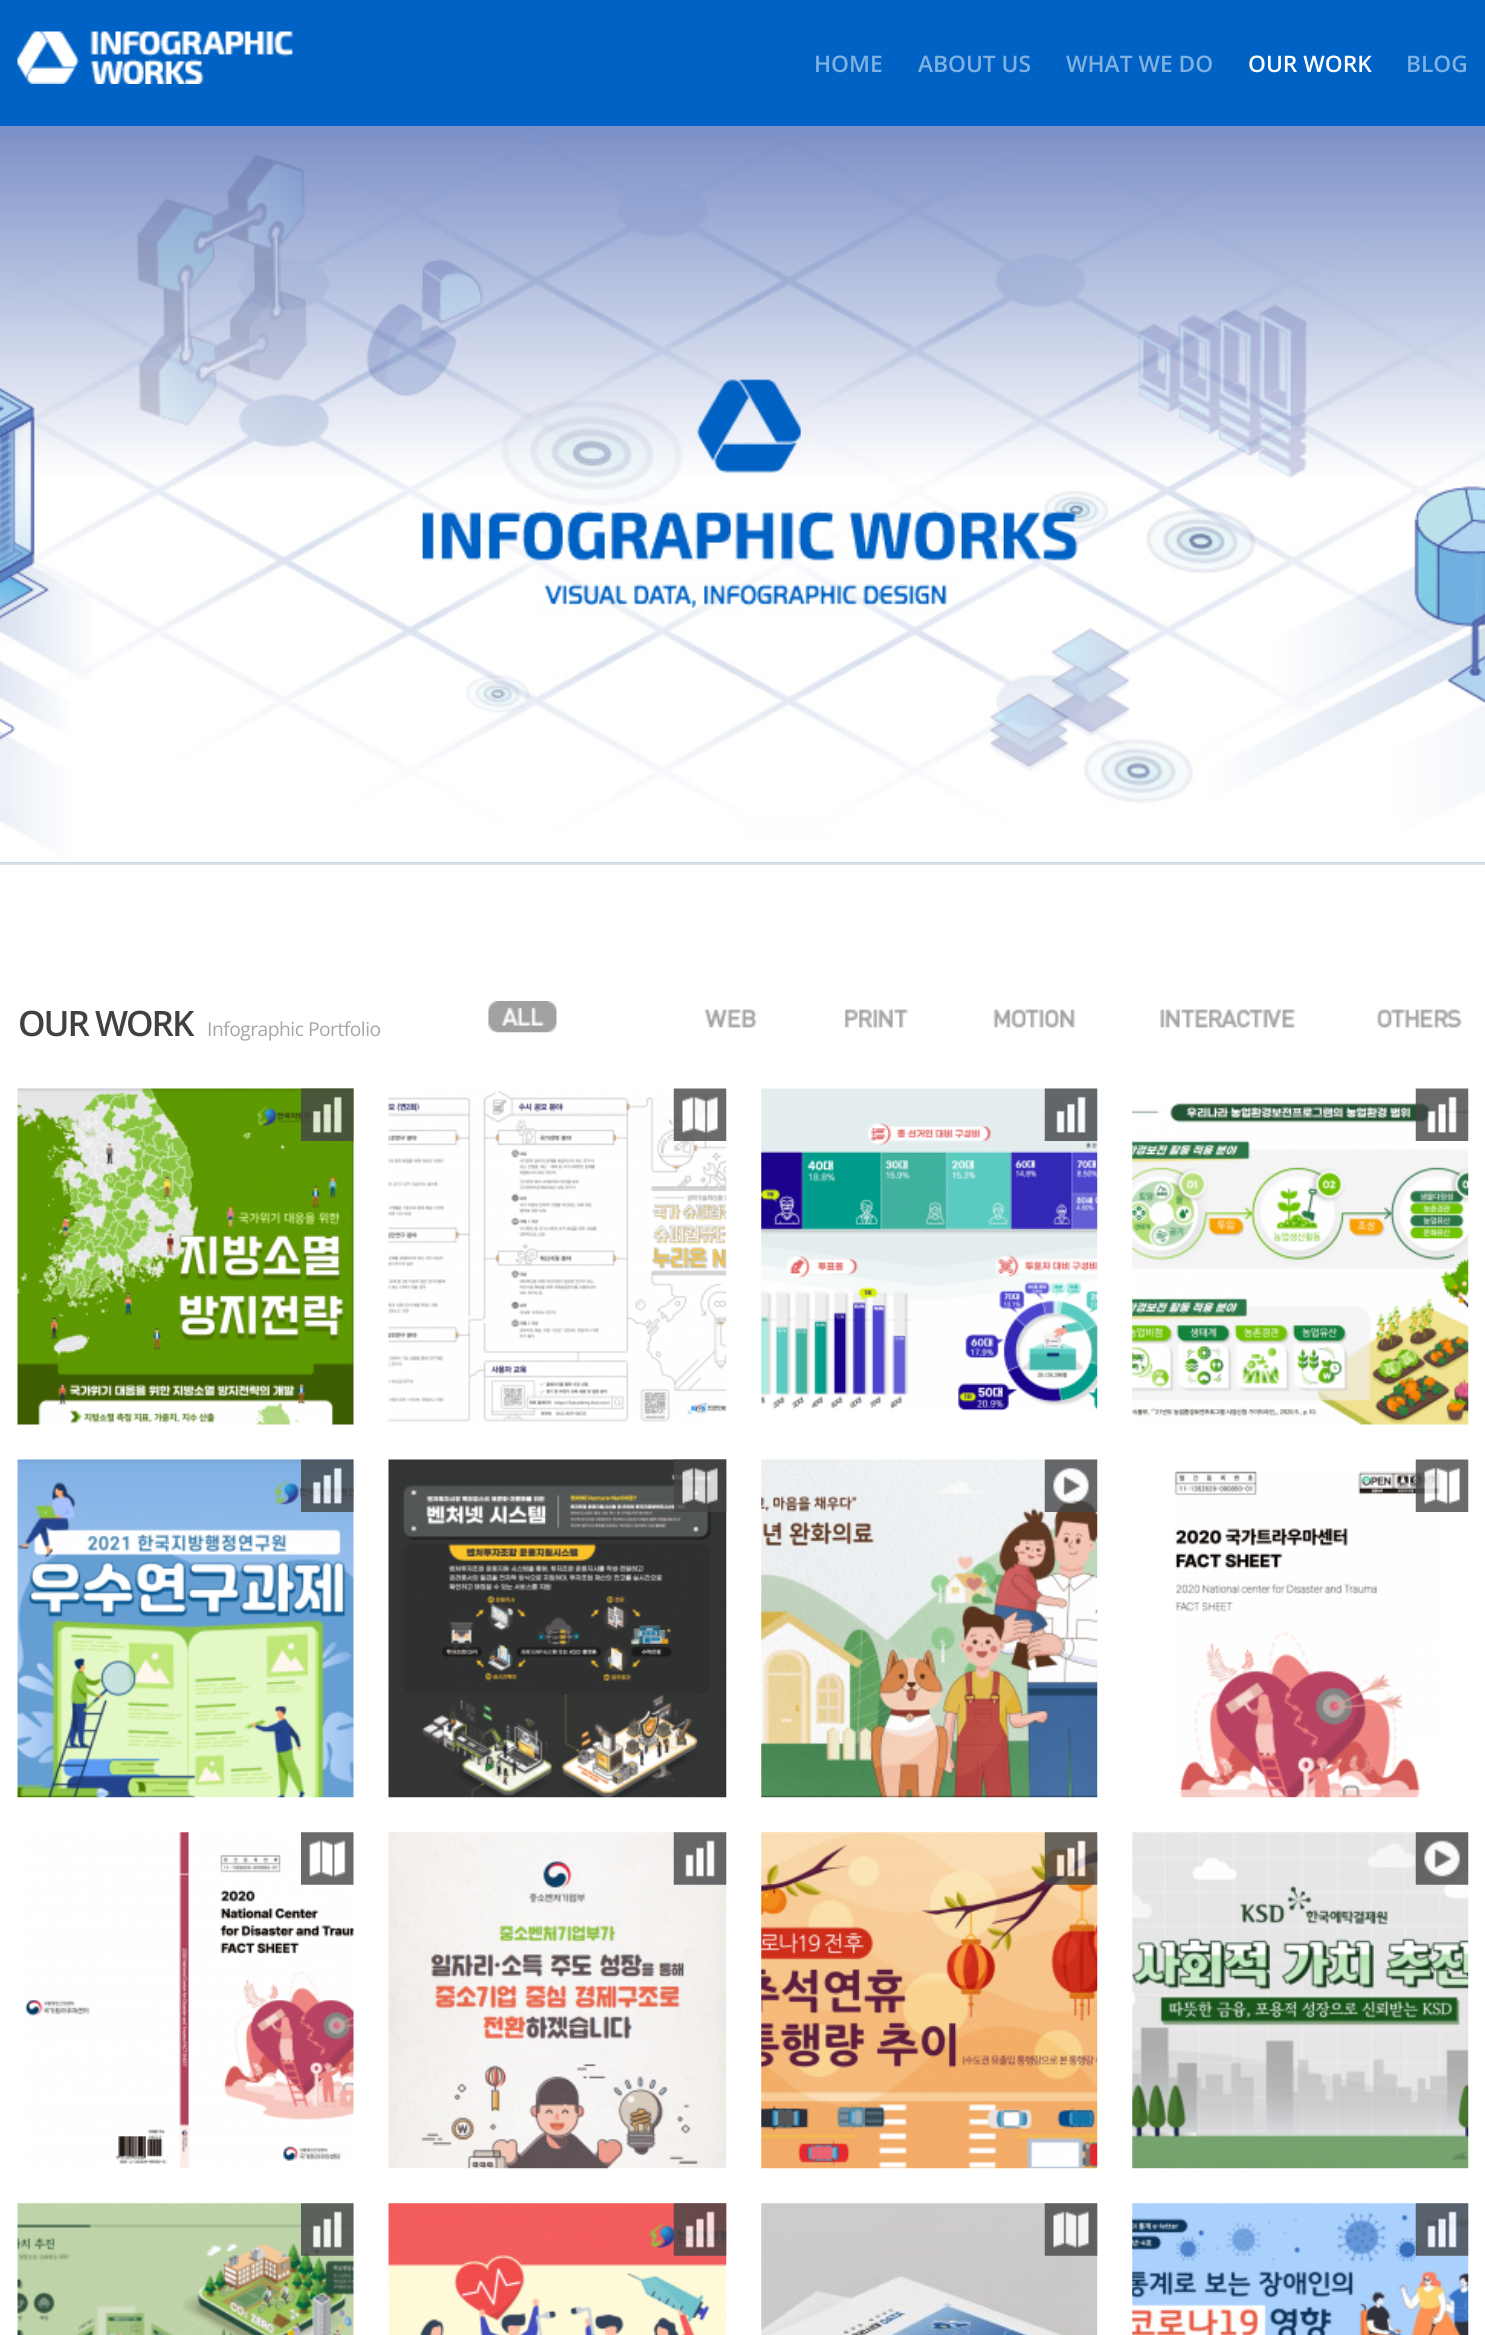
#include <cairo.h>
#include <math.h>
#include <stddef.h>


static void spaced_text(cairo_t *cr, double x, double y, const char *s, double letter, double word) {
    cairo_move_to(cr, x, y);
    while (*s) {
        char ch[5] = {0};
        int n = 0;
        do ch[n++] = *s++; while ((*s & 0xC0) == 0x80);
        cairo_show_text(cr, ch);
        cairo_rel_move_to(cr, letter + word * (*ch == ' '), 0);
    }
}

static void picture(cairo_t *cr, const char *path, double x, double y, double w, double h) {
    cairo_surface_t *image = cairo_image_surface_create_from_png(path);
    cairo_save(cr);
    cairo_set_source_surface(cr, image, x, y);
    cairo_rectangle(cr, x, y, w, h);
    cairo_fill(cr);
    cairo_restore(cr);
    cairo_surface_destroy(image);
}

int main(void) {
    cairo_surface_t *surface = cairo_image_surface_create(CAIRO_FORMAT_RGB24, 1485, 2335);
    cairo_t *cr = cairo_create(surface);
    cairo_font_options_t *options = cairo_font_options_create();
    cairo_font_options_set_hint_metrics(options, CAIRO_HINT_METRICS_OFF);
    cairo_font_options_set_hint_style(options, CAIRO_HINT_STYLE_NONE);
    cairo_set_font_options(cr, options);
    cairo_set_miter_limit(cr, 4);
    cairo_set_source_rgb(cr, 0, 0.384, 0.769);
    cairo_paint(cr);
    picture(cr, "img1.png", 17, 31, 276, 53);
    cairo_select_font_face(cr, "Open Sans SemiBold", CAIRO_FONT_SLANT_NORMAL, CAIRO_FONT_WEIGHT_NORMAL);
    cairo_set_font_size(cr, 22.75);
    cairo_set_source_rgb(cr, 0.502, 0.694, 0.886);
    cairo_move_to(cr, 814, 72);
    cairo_show_text(cr, "HOME");
    cairo_move_to(cr, 918, 72);
    cairo_show_text(cr, "ABOUT US");
    cairo_move_to(cr, 1066, 72);
    cairo_show_text(cr, "WHAT WE DO");
    cairo_set_source_rgb(cr, 1, 1, 1);
    cairo_move_to(cr, 1248, 72);
    cairo_show_text(cr, "OUR WORK");
    cairo_set_source_rgb(cr, 0.502, 0.694, 0.886);
    cairo_move_to(cr, 1406, 72);
    cairo_show_text(cr, "BLOG");
    picture(cr, "img2.png", 0, 126, 1485, 737);
    cairo_set_source_rgb(cr, 1, 1, 1);
    cairo_rectangle(cr, 0, 865, 1485, 1470);
    cairo_fill(cr);
    cairo_set_source_rgb(cr, 0.882, 0.882, 0.882);
    cairo_rectangle(cr, 0, 863, 1485, 2);
    cairo_fill(cr);
    cairo_set_font_size(cr, 35);
    cairo_set_source_rgb(cr, 0.255, 0.255, 0.255);
    spaced_text(cr, 18, 1036, "OUR WORK", -2, 0);
    cairo_select_font_face(cr, "Open Sans", CAIRO_FONT_SLANT_NORMAL, CAIRO_FONT_WEIGHT_NORMAL);
    cairo_set_font_size(cr, 19.25);
    cairo_set_source_rgb(cr, 0.651, 0.651, 0.651);
    spaced_text(cr, 207, 1036, "Infographic Portfolio", -0.5, 0);
    picture(cr, "img3.png", 488, 1001, 69, 32);
    picture(cr, "img4.png", 704, 1009, 53, 19);
    picture(cr, "img5.png", 844, 1009, 65, 19);
    picture(cr, "img6.png", 993, 1009, 82, 19);
    picture(cr, "img7.png", 1160, 1009, 136, 19);
    picture(cr, "img8.png", 1377, 1009, 85, 19);
    picture(cr, "img9.png", 17, 1088, 337, 337);
    picture(cr, "img10.png", 301, 1088, 53, 53);
    picture(cr, "img12.png", 388, 1090, 339, 332);
    picture(cr, "img11.png", 673, 1088, 54, 53);
    picture(cr, "img13.png", 761, 1088, 337, 323);
    picture(cr, "img14.png", 1044, 1088, 54, 53);
    picture(cr, "img16.png", 1132, 1103, 337, 322);
    picture(cr, "img15.png", 1415, 1088, 54, 53);
    picture(cr, "img17.png", 17, 1459, 337, 339);
    picture(cr, "img18.png", 301, 1459, 53, 53);
    picture(cr, "img19.png", 388, 1459, 339, 339);
    picture(cr, "img20.png", 673, 1459, 54, 53);
    picture(cr, "img21.png", 761, 1459, 337, 339);
    picture(cr, "img22.png", 1044, 1459, 54, 53);
    picture(cr, "img23.png", 1174, 1471, 267, 327);
    picture(cr, "img24.png", 1415, 1459, 54, 53);
    picture(cr, "img25.png", 25, 1832, 329, 337);
    picture(cr, "img26.png", 301, 1832, 53, 53);
    picture(cr, "img27.png", 388, 1832, 339, 337);
    picture(cr, "img28.png", 673, 1832, 54, 53);
    picture(cr, "img29.png", 761, 1832, 337, 337);
    picture(cr, "img30.png", 1044, 1832, 54, 53);
    picture(cr, "img31.png", 1132, 1832, 337, 337);
    picture(cr, "img32.png", 1415, 1832, 54, 53);
    picture(cr, "img33.png", 17, 2203, 337, 132);
    picture(cr, "img34.png", 301, 2203, 53, 53);
    picture(cr, "img35.png", 388, 2203, 339, 132);
    picture(cr, "img36.png", 673, 2203, 54, 53);
    picture(cr, "img37.png", 761, 2203, 337, 132);
    picture(cr, "img38.png", 1044, 2203, 54, 53);
    picture(cr, "img39.png", 1132, 2203, 337, 132);
    picture(cr, "img40.png", 1415, 2203, 54, 53);
    cairo_surface_write_to_png(surface, "page.png");
    cairo_font_options_destroy(options);
    cairo_destroy(cr);
    cairo_surface_destroy(surface);
    return 0;
}
